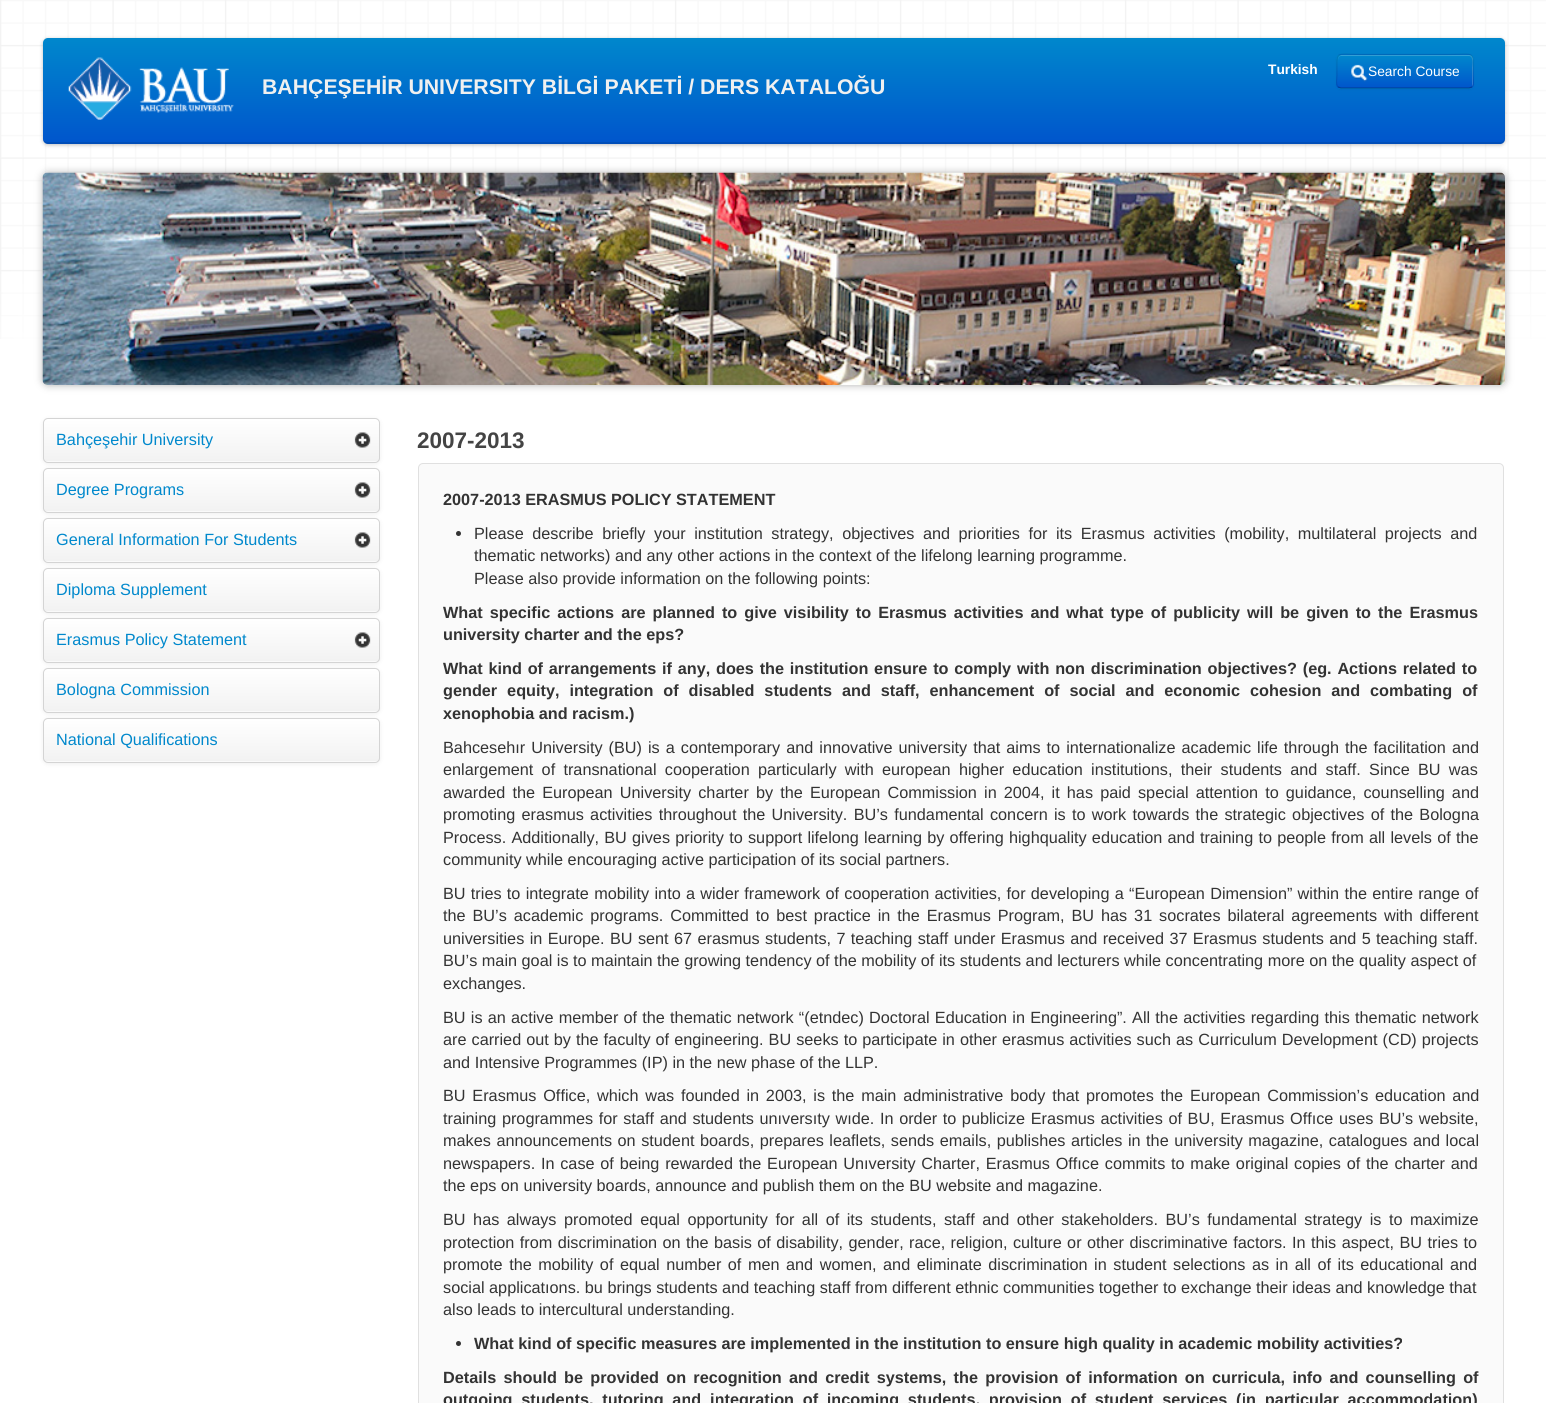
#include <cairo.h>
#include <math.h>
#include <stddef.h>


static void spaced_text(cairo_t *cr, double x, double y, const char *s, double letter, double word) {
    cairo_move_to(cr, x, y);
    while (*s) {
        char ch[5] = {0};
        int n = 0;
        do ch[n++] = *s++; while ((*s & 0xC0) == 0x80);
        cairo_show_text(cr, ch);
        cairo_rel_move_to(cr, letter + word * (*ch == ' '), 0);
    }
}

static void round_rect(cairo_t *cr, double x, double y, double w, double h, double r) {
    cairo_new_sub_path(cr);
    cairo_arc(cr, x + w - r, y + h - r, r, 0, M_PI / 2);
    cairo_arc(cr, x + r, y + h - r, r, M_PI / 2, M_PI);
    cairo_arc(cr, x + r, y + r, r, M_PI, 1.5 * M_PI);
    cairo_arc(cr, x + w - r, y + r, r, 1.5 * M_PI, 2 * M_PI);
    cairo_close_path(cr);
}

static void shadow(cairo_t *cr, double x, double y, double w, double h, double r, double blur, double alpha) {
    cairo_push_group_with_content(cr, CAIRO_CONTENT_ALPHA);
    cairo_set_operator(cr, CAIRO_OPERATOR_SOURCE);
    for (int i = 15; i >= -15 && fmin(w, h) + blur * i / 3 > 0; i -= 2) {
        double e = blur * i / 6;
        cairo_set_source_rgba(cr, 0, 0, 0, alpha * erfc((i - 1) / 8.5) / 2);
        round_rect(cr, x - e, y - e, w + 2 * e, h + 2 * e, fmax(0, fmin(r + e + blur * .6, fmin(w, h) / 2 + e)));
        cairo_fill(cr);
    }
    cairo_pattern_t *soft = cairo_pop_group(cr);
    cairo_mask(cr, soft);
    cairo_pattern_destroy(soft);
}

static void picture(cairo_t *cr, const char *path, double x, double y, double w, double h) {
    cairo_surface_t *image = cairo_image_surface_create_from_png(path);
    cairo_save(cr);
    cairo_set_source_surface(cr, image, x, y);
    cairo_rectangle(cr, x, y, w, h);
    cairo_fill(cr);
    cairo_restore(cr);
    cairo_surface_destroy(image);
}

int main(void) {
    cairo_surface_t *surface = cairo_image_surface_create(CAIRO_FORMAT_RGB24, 1546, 1403);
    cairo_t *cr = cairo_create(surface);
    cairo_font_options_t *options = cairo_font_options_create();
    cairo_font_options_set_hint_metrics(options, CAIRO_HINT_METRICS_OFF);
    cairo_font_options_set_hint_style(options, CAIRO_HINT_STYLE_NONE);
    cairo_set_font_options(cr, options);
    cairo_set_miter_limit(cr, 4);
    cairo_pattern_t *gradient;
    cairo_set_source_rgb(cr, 1, 1, 1);
    cairo_paint(cr);
    picture(cr, "img1.png", 0, 0, 1546, 339);
    cairo_set_source_rgb(cr, 0, 0, 0);
    shadow(cr, 43, 39, 1462, 106, 5, 2, 0.25);
    gradient = cairo_pattern_create_linear(774, 37, 774, 144);
    cairo_pattern_add_color_stop_rgba(gradient, 0, 0, 0.533, 0.8, 1);
    cairo_pattern_add_color_stop_rgba(gradient, 1, 0, 0.333, 0.8, 1);
    cairo_set_source(cr, gradient);
    cairo_pattern_destroy(gradient);
    round_rect(cr, 43, 38, 1462, 106, 5);
    cairo_fill(cr);
    cairo_set_source_rgba(cr, 0, 0, 0, 0.1);
    cairo_new_path(cr);
    cairo_move_to(cr, 43, 140);
    cairo_curve_to(cr, 44, 142, 46, 144, 48, 144);
    cairo_line_to(cr, 1500, 144);
    cairo_curve_to(cr, 1503, 144, 1505, 142, 1505, 139);
    cairo_line_to(cr, 1505, 138);
    cairo_curve_to(cr, 1505, 140, 1503, 142, 1500, 142);
    cairo_line_to(cr, 48, 142);
    cairo_curve_to(cr, 46, 142, 44, 141, 43, 140);
    cairo_close_path(cr);
    cairo_fill(cr);
    cairo_select_font_face(cr, "Liberation Sans", CAIRO_FONT_SLANT_NORMAL, CAIRO_FONT_WEIGHT_BOLD);
    cairo_set_font_size(cr, 13.75);
    cairo_set_source_rgb(cr, 1, 1, 1);
    cairo_move_to(cr, 1268, 74);
    cairo_show_text(cr, "Turkish");
    cairo_set_source_rgb(cr, 0, 0, 0);
    shadow(cr, 1336, 55, 138, 35, 5, 1, 0.05);
    cairo_set_source_rgb(cr, 0, 0.455, 0.8);
    round_rect(cr, 1336, 54, 138, 35, 5);
    cairo_fill(cr);
    cairo_save(cr);
    round_rect(cr, 1336, 54, 138, 35, 5);
    cairo_clip(cr);
    gradient = cairo_pattern_create_linear(1405, 55, 1405, 88);
    cairo_pattern_add_color_stop_rgba(gradient, 0, 0, 0.533, 0.8, 1);
    cairo_pattern_add_color_stop_rgba(gradient, 1, 0, 0.333, 0.8, 1);
    cairo_set_source(cr, gradient);
    cairo_pattern_destroy(gradient);
    cairo_rectangle(cr, 1336, 55, 138, 33);
    cairo_fill(cr);
    cairo_restore(cr);
    cairo_set_source_rgba(cr, 1, 1, 1, 0.2);
    cairo_new_path(cr);
    cairo_move_to(cr, 1341, 56);
    cairo_line_to(cr, 1469, 56);
    cairo_curve_to(cr, 1474, 56, 1472, 66, 1472, 68);
    cairo_line_to(cr, 1472, 87);
    cairo_curve_to(cr, 1472, 86, 1473, 85, 1473, 84);
    cairo_line_to(cr, 1473, 59);
    cairo_curve_to(cr, 1473, 57, 1471, 55, 1469, 55);
    cairo_line_to(cr, 1342, 55);
    cairo_curve_to(cr, 1340, 55, 1338, 57, 1338, 59);
    cairo_line_to(cr, 1338, 60);
    cairo_curve_to(cr, 1338, 58, 1339, 56, 1341, 56);
    cairo_close_path(cr);
    cairo_fill(cr);
    cairo_new_path(cr);
    cairo_move_to(cr, 1472, 87);
    cairo_line_to(cr, 1469, 88);
    cairo_line_to(cr, 1362.5, 88);
    cairo_line_to(cr, 1341, 88);
    cairo_line_to(cr, 1338, 87);
    cairo_set_source_rgba(cr, 0, 0, 0, 0.25);
    cairo_set_line_width(cr, 1.2);
    cairo_stroke(cr);
    cairo_new_path(cr);
    cairo_move_to(cr, 1338, 87);
    cairo_curve_to(cr, 1335.5, 84, 1337, 78.5, 1337, 75.5);
    cairo_curve_to(cr, 1337, 49.5, 1333.5, 54.5, 1362.5, 54.5);
    cairo_line_to(cr, 1447.5, 54.5);
    cairo_curve_to(cr, 1476.5, 54.5, 1473, 49.5, 1473, 75.5);
    cairo_curve_to(cr, 1473, 78.5, 1474.5, 84, 1472, 87);
    cairo_set_source_rgba(cr, 0, 0, 0, 0.1);
    cairo_stroke(cr);
    picture(cr, "img2.png", 1351, 64, 17, 18);
    cairo_select_font_face(cr, "Liberation Sans", CAIRO_FONT_SLANT_NORMAL, CAIRO_FONT_WEIGHT_NORMAL);
    cairo_set_source_rgb(cr, 1, 1, 1);
    cairo_move_to(cr, 1368, 76);
    cairo_show_text(cr, "Search Course");
    picture(cr, "img3.png", 68, 57, 166, 63);
    cairo_select_font_face(cr, "Liberation Sans", CAIRO_FONT_SLANT_NORMAL, CAIRO_FONT_WEIGHT_BOLD);
    cairo_set_font_size(cr, 21.25);
    cairo_set_source_rgb(cr, 0.941, 0.941, 0.941);
    cairo_move_to(cr, 262, 94);
    cairo_show_text(cr, "BAHÇEŞEHİR UNIVERSITY BİLGİ PAKETİ / DERS KATALOĞU");
    cairo_set_source_rgb(cr, 0.69, 0.69, 0.69);
    shadow(cr, 43, 173, 1462, 212, 5, 4, 1);
    picture(cr, "img4.png", 42, 172, 1463, 213);
    cairo_set_source_rgb(cr, 0, 0, 0);
    shadow(cr, 43, 419, 337, 45, 5, 2.5, 0.07);
    cairo_set_source_rgb(cr, 0.98, 0.98, 0.98);
    round_rect(cr, 43, 418, 337, 45, 5);
    cairo_fill(cr);
    cairo_save(cr);
    round_rect(cr, 43, 418, 337, 45, 5);
    cairo_clip(cr);
    gradient = cairo_pattern_create_linear(211, 419, 211, 461);
    cairo_pattern_add_color_stop_rgba(gradient, 0, 1, 1, 1, 1);
    cairo_pattern_add_color_stop_rgba(gradient, 1, 0.949, 0.949, 0.949, 1);
    cairo_set_source(cr, gradient);
    cairo_pattern_destroy(gradient);
    cairo_rectangle(cr, 43, 419, 337, 42);
    cairo_fill(cr);
    cairo_restore(cr);
    round_rect(cr, 43.5, 418.5, 336, 44, 4.5);
    cairo_set_source_rgb(cr, 0.831, 0.831, 0.831);
    cairo_set_line_width(cr, 1);
    cairo_stroke(cr);
    cairo_select_font_face(cr, "Liberation Sans", CAIRO_FONT_SLANT_NORMAL, CAIRO_FONT_WEIGHT_NORMAL);
    cairo_set_font_size(cr, 16.25);
    cairo_set_source_rgb(cr, 0, 0.533, 0.8);
    cairo_move_to(cr, 56, 445);
    cairo_show_text(cr, "Bahçeşehir University");
    picture(cr, "img5.png", 354, 432, 17, 16);
    cairo_set_source_rgb(cr, 0, 0, 0);
    shadow(cr, 43, 469, 337, 45, 5, 2.5, 0.07);
    cairo_set_source_rgb(cr, 0.98, 0.98, 0.98);
    round_rect(cr, 43, 468, 337, 45, 5);
    cairo_fill(cr);
    cairo_save(cr);
    round_rect(cr, 43, 468, 337, 45, 5);
    cairo_clip(cr);
    gradient = cairo_pattern_create_linear(211, 469, 211, 511);
    cairo_pattern_add_color_stop_rgba(gradient, 0, 1, 1, 1, 1);
    cairo_pattern_add_color_stop_rgba(gradient, 1, 0.949, 0.949, 0.949, 1);
    cairo_set_source(cr, gradient);
    cairo_pattern_destroy(gradient);
    cairo_rectangle(cr, 43, 469, 337, 42);
    cairo_fill(cr);
    cairo_restore(cr);
    round_rect(cr, 43.5, 468.5, 336, 44, 4.5);
    cairo_set_source_rgb(cr, 0.831, 0.831, 0.831);
    cairo_stroke(cr);
    cairo_set_source_rgb(cr, 0, 0.533, 0.8);
    cairo_move_to(cr, 56, 495);
    cairo_show_text(cr, "Degree Programs");
    picture(cr, "img5.png", 354, 482, 17, 16);
    cairo_set_source_rgb(cr, 0, 0, 0);
    shadow(cr, 43, 519, 337, 45, 5, 2.5, 0.07);
    cairo_set_source_rgb(cr, 0.98, 0.98, 0.98);
    round_rect(cr, 43, 518, 337, 45, 5);
    cairo_fill(cr);
    cairo_save(cr);
    round_rect(cr, 43, 518, 337, 45, 5);
    cairo_clip(cr);
    gradient = cairo_pattern_create_linear(211, 519, 211, 561);
    cairo_pattern_add_color_stop_rgba(gradient, 0, 1, 1, 1, 1);
    cairo_pattern_add_color_stop_rgba(gradient, 1, 0.949, 0.949, 0.949, 1);
    cairo_set_source(cr, gradient);
    cairo_pattern_destroy(gradient);
    cairo_rectangle(cr, 43, 519, 337, 42);
    cairo_fill(cr);
    cairo_restore(cr);
    round_rect(cr, 43.5, 518.5, 336, 44, 4.5);
    cairo_set_source_rgb(cr, 0.831, 0.831, 0.831);
    cairo_stroke(cr);
    cairo_set_source_rgb(cr, 0, 0.533, 0.8);
    cairo_move_to(cr, 56, 545);
    cairo_show_text(cr, "General Information For Students");
    picture(cr, "img5.png", 354, 532, 17, 16);
    cairo_set_source_rgb(cr, 0, 0, 0);
    shadow(cr, 43, 569, 337, 45, 5, 2.5, 0.07);
    cairo_set_source_rgb(cr, 0.98, 0.98, 0.98);
    round_rect(cr, 43, 568, 337, 45, 5);
    cairo_fill(cr);
    cairo_save(cr);
    round_rect(cr, 43, 568, 337, 45, 5);
    cairo_clip(cr);
    gradient = cairo_pattern_create_linear(211, 569, 211, 611);
    cairo_pattern_add_color_stop_rgba(gradient, 0, 1, 1, 1, 1);
    cairo_pattern_add_color_stop_rgba(gradient, 1, 0.949, 0.949, 0.949, 1);
    cairo_set_source(cr, gradient);
    cairo_pattern_destroy(gradient);
    cairo_rectangle(cr, 43, 569, 337, 42);
    cairo_fill(cr);
    cairo_restore(cr);
    round_rect(cr, 43.5, 568.5, 336, 44, 4.5);
    cairo_set_source_rgb(cr, 0.831, 0.831, 0.831);
    cairo_stroke(cr);
    cairo_set_source_rgb(cr, 0, 0.533, 0.8);
    cairo_move_to(cr, 56, 595);
    cairo_show_text(cr, "Diploma Supplement");
    cairo_set_source_rgb(cr, 0, 0, 0);
    shadow(cr, 43, 619, 337, 45, 5, 2.5, 0.07);
    cairo_set_source_rgb(cr, 0.98, 0.98, 0.98);
    round_rect(cr, 43, 618, 337, 45, 5);
    cairo_fill(cr);
    cairo_save(cr);
    round_rect(cr, 43, 618, 337, 45, 5);
    cairo_clip(cr);
    gradient = cairo_pattern_create_linear(211, 619, 211, 661);
    cairo_pattern_add_color_stop_rgba(gradient, 0, 1, 1, 1, 1);
    cairo_pattern_add_color_stop_rgba(gradient, 1, 0.949, 0.949, 0.949, 1);
    cairo_set_source(cr, gradient);
    cairo_pattern_destroy(gradient);
    cairo_rectangle(cr, 43, 619, 337, 42);
    cairo_fill(cr);
    cairo_restore(cr);
    round_rect(cr, 43.5, 618.5, 336, 44, 4.5);
    cairo_set_source_rgb(cr, 0.831, 0.831, 0.831);
    cairo_stroke(cr);
    cairo_set_source_rgb(cr, 0, 0.533, 0.8);
    cairo_move_to(cr, 56, 645);
    cairo_show_text(cr, "Erasmus Policy Statement");
    picture(cr, "img5.png", 354, 632, 17, 16);
    cairo_set_source_rgb(cr, 0, 0, 0);
    shadow(cr, 43, 669, 337, 45, 5, 2.5, 0.07);
    cairo_set_source_rgb(cr, 0.98, 0.98, 0.98);
    round_rect(cr, 43, 668, 337, 45, 5);
    cairo_fill(cr);
    cairo_save(cr);
    round_rect(cr, 43, 668, 337, 45, 5);
    cairo_clip(cr);
    gradient = cairo_pattern_create_linear(211, 669, 211, 711);
    cairo_pattern_add_color_stop_rgba(gradient, 0, 1, 1, 1, 1);
    cairo_pattern_add_color_stop_rgba(gradient, 1, 0.949, 0.949, 0.949, 1);
    cairo_set_source(cr, gradient);
    cairo_pattern_destroy(gradient);
    cairo_rectangle(cr, 43, 669, 337, 42);
    cairo_fill(cr);
    cairo_restore(cr);
    round_rect(cr, 43.5, 668.5, 336, 44, 4.5);
    cairo_set_source_rgb(cr, 0.831, 0.831, 0.831);
    cairo_stroke(cr);
    cairo_set_source_rgb(cr, 0, 0.533, 0.8);
    cairo_move_to(cr, 56, 695);
    cairo_show_text(cr, "Bologna Commission");
    cairo_set_source_rgb(cr, 0, 0, 0);
    shadow(cr, 43, 719, 337, 45, 5, 2.5, 0.07);
    cairo_set_source_rgb(cr, 0.98, 0.98, 0.98);
    round_rect(cr, 43, 718, 337, 45, 5);
    cairo_fill(cr);
    cairo_save(cr);
    round_rect(cr, 43, 718, 337, 45, 5);
    cairo_clip(cr);
    gradient = cairo_pattern_create_linear(211, 719, 211, 761);
    cairo_pattern_add_color_stop_rgba(gradient, 0, 1, 1, 1, 1);
    cairo_pattern_add_color_stop_rgba(gradient, 1, 0.949, 0.949, 0.949, 1);
    cairo_set_source(cr, gradient);
    cairo_pattern_destroy(gradient);
    cairo_rectangle(cr, 43, 719, 337, 42);
    cairo_fill(cr);
    cairo_restore(cr);
    round_rect(cr, 43.5, 718.5, 336, 44, 4.5);
    cairo_set_source_rgb(cr, 0.831, 0.831, 0.831);
    cairo_stroke(cr);
    cairo_set_source_rgb(cr, 0, 0.533, 0.8);
    cairo_move_to(cr, 56, 745);
    cairo_show_text(cr, "National Qualifications");
    cairo_select_font_face(cr, "Liberation Sans", CAIRO_FONT_SLANT_NORMAL, CAIRO_FONT_WEIGHT_BOLD);
    cairo_set_font_size(cr, 22.5);
    cairo_set_source_rgb(cr, 0.267, 0.267, 0.267);
    cairo_move_to(cr, 417, 448);
    cairo_show_text(cr, "2007-2013");
    cairo_set_source_rgb(cr, 0.98, 0.98, 0.98);
    round_rect(cr, 418.5, 463.5, 1085, 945, 4.5);
    cairo_fill_preserve(cr);
    cairo_set_source_rgb(cr, 0.878, 0.878, 0.878);
    cairo_stroke(cr);
    cairo_set_font_size(cr, 16.25);
    cairo_set_source_rgb(cr, 0.2, 0.2, 0.2);
    cairo_move_to(cr, 443, 505);
    cairo_show_text(cr, "2007-2013 ERASMUS POLICY STATEMENT");
    cairo_new_path(cr);
    cairo_arc(cr, 458.5, 533.5, 2.5, 0, 2 * M_PI);
    cairo_fill(cr);
    cairo_select_font_face(cr, "Liberation Sans", CAIRO_FONT_SLANT_NORMAL, CAIRO_FONT_WEIGHT_NORMAL);
    spaced_text(cr, 474, 539, "Please describe briefly your institution strategy, objectives and priorities for its Erasmus activities (mobility, multilateral projects and", 0, 4);
    cairo_move_to(cr, 474, 561);
    cairo_show_text(cr, "thematic networks) and any other actions in the context of the lifelong learning programme.");
    cairo_move_to(cr, 474, 584);
    cairo_show_text(cr, "Please also provide information on the following points:");
    cairo_select_font_face(cr, "Liberation Sans", CAIRO_FONT_SLANT_NORMAL, CAIRO_FONT_WEIGHT_BOLD);
    spaced_text(cr, 443, 618, "What specific actions are planned to give visibility to Erasmus activities and what type of publicity will be given to the Erasmus", 0, 2.5);
    cairo_move_to(cr, 443, 640);
    cairo_show_text(cr, "university charter and the eps?");
    spaced_text(cr, 443, 674, "What kind of arrangements if any, does the institution ensure to comply with non discrimination objectives? (eg. Actions related to", 0, 1.25);
    spaced_text(cr, 443, 696, "gender equity, integration of disabled students and staff, enhancement of social and economic cohesion and combating of", 0, 5.4);
    cairo_move_to(cr, 443, 719);
    cairo_show_text(cr, "xenophobia and racism.)");
    cairo_select_font_face(cr, "Liberation Sans", CAIRO_FONT_SLANT_NORMAL, CAIRO_FONT_WEIGHT_NORMAL);
    spaced_text(cr, 443, 753, "Bahcesehır University (BU) is a contemporary and innovative university that aims to internationalize academic life through the facilitation and", 0, 1.5);
    spaced_text(cr, 443, 775, "enlargement of transnational cooperation particularly with european higher education institutions, their students and staff. Since BU was", 0, 3.75);
    spaced_text(cr, 443, 798, "awarded the European University charter by the European Commission in 2004, it has paid special attention to guidance, counselling and", 0, 2.6);
    spaced_text(cr, 443, 820, "promoting erasmus activities throughout the University. BU’s fundamental concern is to work towards the strategic objectives of the Bologna", 0, 1.75);
    spaced_text(cr, 443, 843, "Process. Additionally, BU gives priority to support lifelong learning by offering highquality education and training to people from all levels of the", 0, 0.7);
    cairo_move_to(cr, 443, 865);
    cairo_show_text(cr, "community while encouraging active participation of its social partners.");
    spaced_text(cr, 443, 899, "BU tries to integrate mobility into a wider framework of cooperation activities, for developing a “European Dimension” within the entire range of", 0, 0.75);
    spaced_text(cr, 443, 921, "the BU’s academic programs. Committed to best practice in the Erasmus Program, BU has 31 socrates bilateral agreements with different", 0, 2.4);
    spaced_text(cr, 443, 944, "universities in Europe. BU sent 67 erasmus students, 7 teaching staff under Erasmus and received 37 Erasmus students and 5 teaching staff.", 0, 0.85);
    cairo_move_to(cr, 443, 966);
    cairo_show_text(cr, "BU’s main goal is to maintain the growing tendency of the mobility of its students and lecturers while concentrating more on the quality aspect of");
    cairo_move_to(cr, 443, 989);
    cairo_show_text(cr, "exchanges.");
    spaced_text(cr, 443, 1023, "BU is an active member of the thematic network “(etndec) Doctoral Education in Engineering”. All the activities regarding this thematic network", 0, 0.7);
    spaced_text(cr, 443, 1045, "are carried out by the faculty of engineering. BU seeks to participate in other erasmus activities such as Curriculum Development (CD) projects", 0, 0.5);
    cairo_move_to(cr, 443, 1068);
    cairo_show_text(cr, "and Intensive Programmes (IP) in the new phase of the LLP.");
    spaced_text(cr, 443, 1101, "BU Erasmus Office, which was founded in 2003, is the main administrative body that promotes the European Commission’s education and", 0, 2.25);
    spaced_text(cr, 443, 1124, "training programmes for staff and students unıversıty wıde. In order to publicize Erasmus activities of BU, Erasmus Offıce uses BU’s website,", 0, 1.1);
    spaced_text(cr, 443, 1146, "makes announcements on student boards, prepares leaflets, sends emails, publishes articles in the university magazine, catalogues and local", 0, 1);
    spaced_text(cr, 443, 1169, "newspapers. In case of being rewarded the European Unıversity Charter, Erasmus Offıce commits to make original copies of the charter and", 0, 1.25);
    cairo_move_to(cr, 443, 1191);
    cairo_show_text(cr, "the eps on university boards, announce and publish them on the BU website and magazine.");
    spaced_text(cr, 443, 1225, "BU has always promoted equal opportunity for all of its students, staff and other stakeholders. BU’s fundamental strategy is to maximize", 0, 3);
    spaced_text(cr, 443, 1248, "protection from discrimination on the basis of disability, gender, race, religion, culture or other discriminative factors. In this aspect, BU tries to", 0, 0.9);
    spaced_text(cr, 443, 1270, "promote the mobility of equal number of men and women, and eliminate discrimination in student selections as in all of its educational and", 0, 2);
    cairo_move_to(cr, 443, 1293);
    cairo_show_text(cr, "social applicatıons. bu brings students and teaching staff from different ethnic communities together to exchange their ideas and knowledge that");
    cairo_move_to(cr, 443, 1315);
    cairo_show_text(cr, "also leads to intercultural understanding.");
    cairo_new_path(cr);
    cairo_arc(cr, 458.5, 1343.5, 2.5, 0, 2 * M_PI);
    cairo_fill(cr);
    cairo_select_font_face(cr, "Liberation Sans", CAIRO_FONT_SLANT_NORMAL, CAIRO_FONT_WEIGHT_BOLD);
    cairo_move_to(cr, 474, 1349);
    cairo_show_text(cr, "What kind of specific measures are implemented in the institution to ensure high quality in academic mobility activities?");
    spaced_text(cr, 443, 1383, "Details should be provided on recognition and credit systems, the provision of information on curricula, info and counselling of", 0, 2.75);
    spaced_text(cr, 443, 1405, "outgoing students, tutoring and integration of incoming students, provision of student services (in particular accommodation)", 0, 4.25);
    cairo_surface_write_to_png(surface, "page.png");
    cairo_font_options_destroy(options);
    cairo_destroy(cr);
    cairo_surface_destroy(surface);
    return 0;
}
